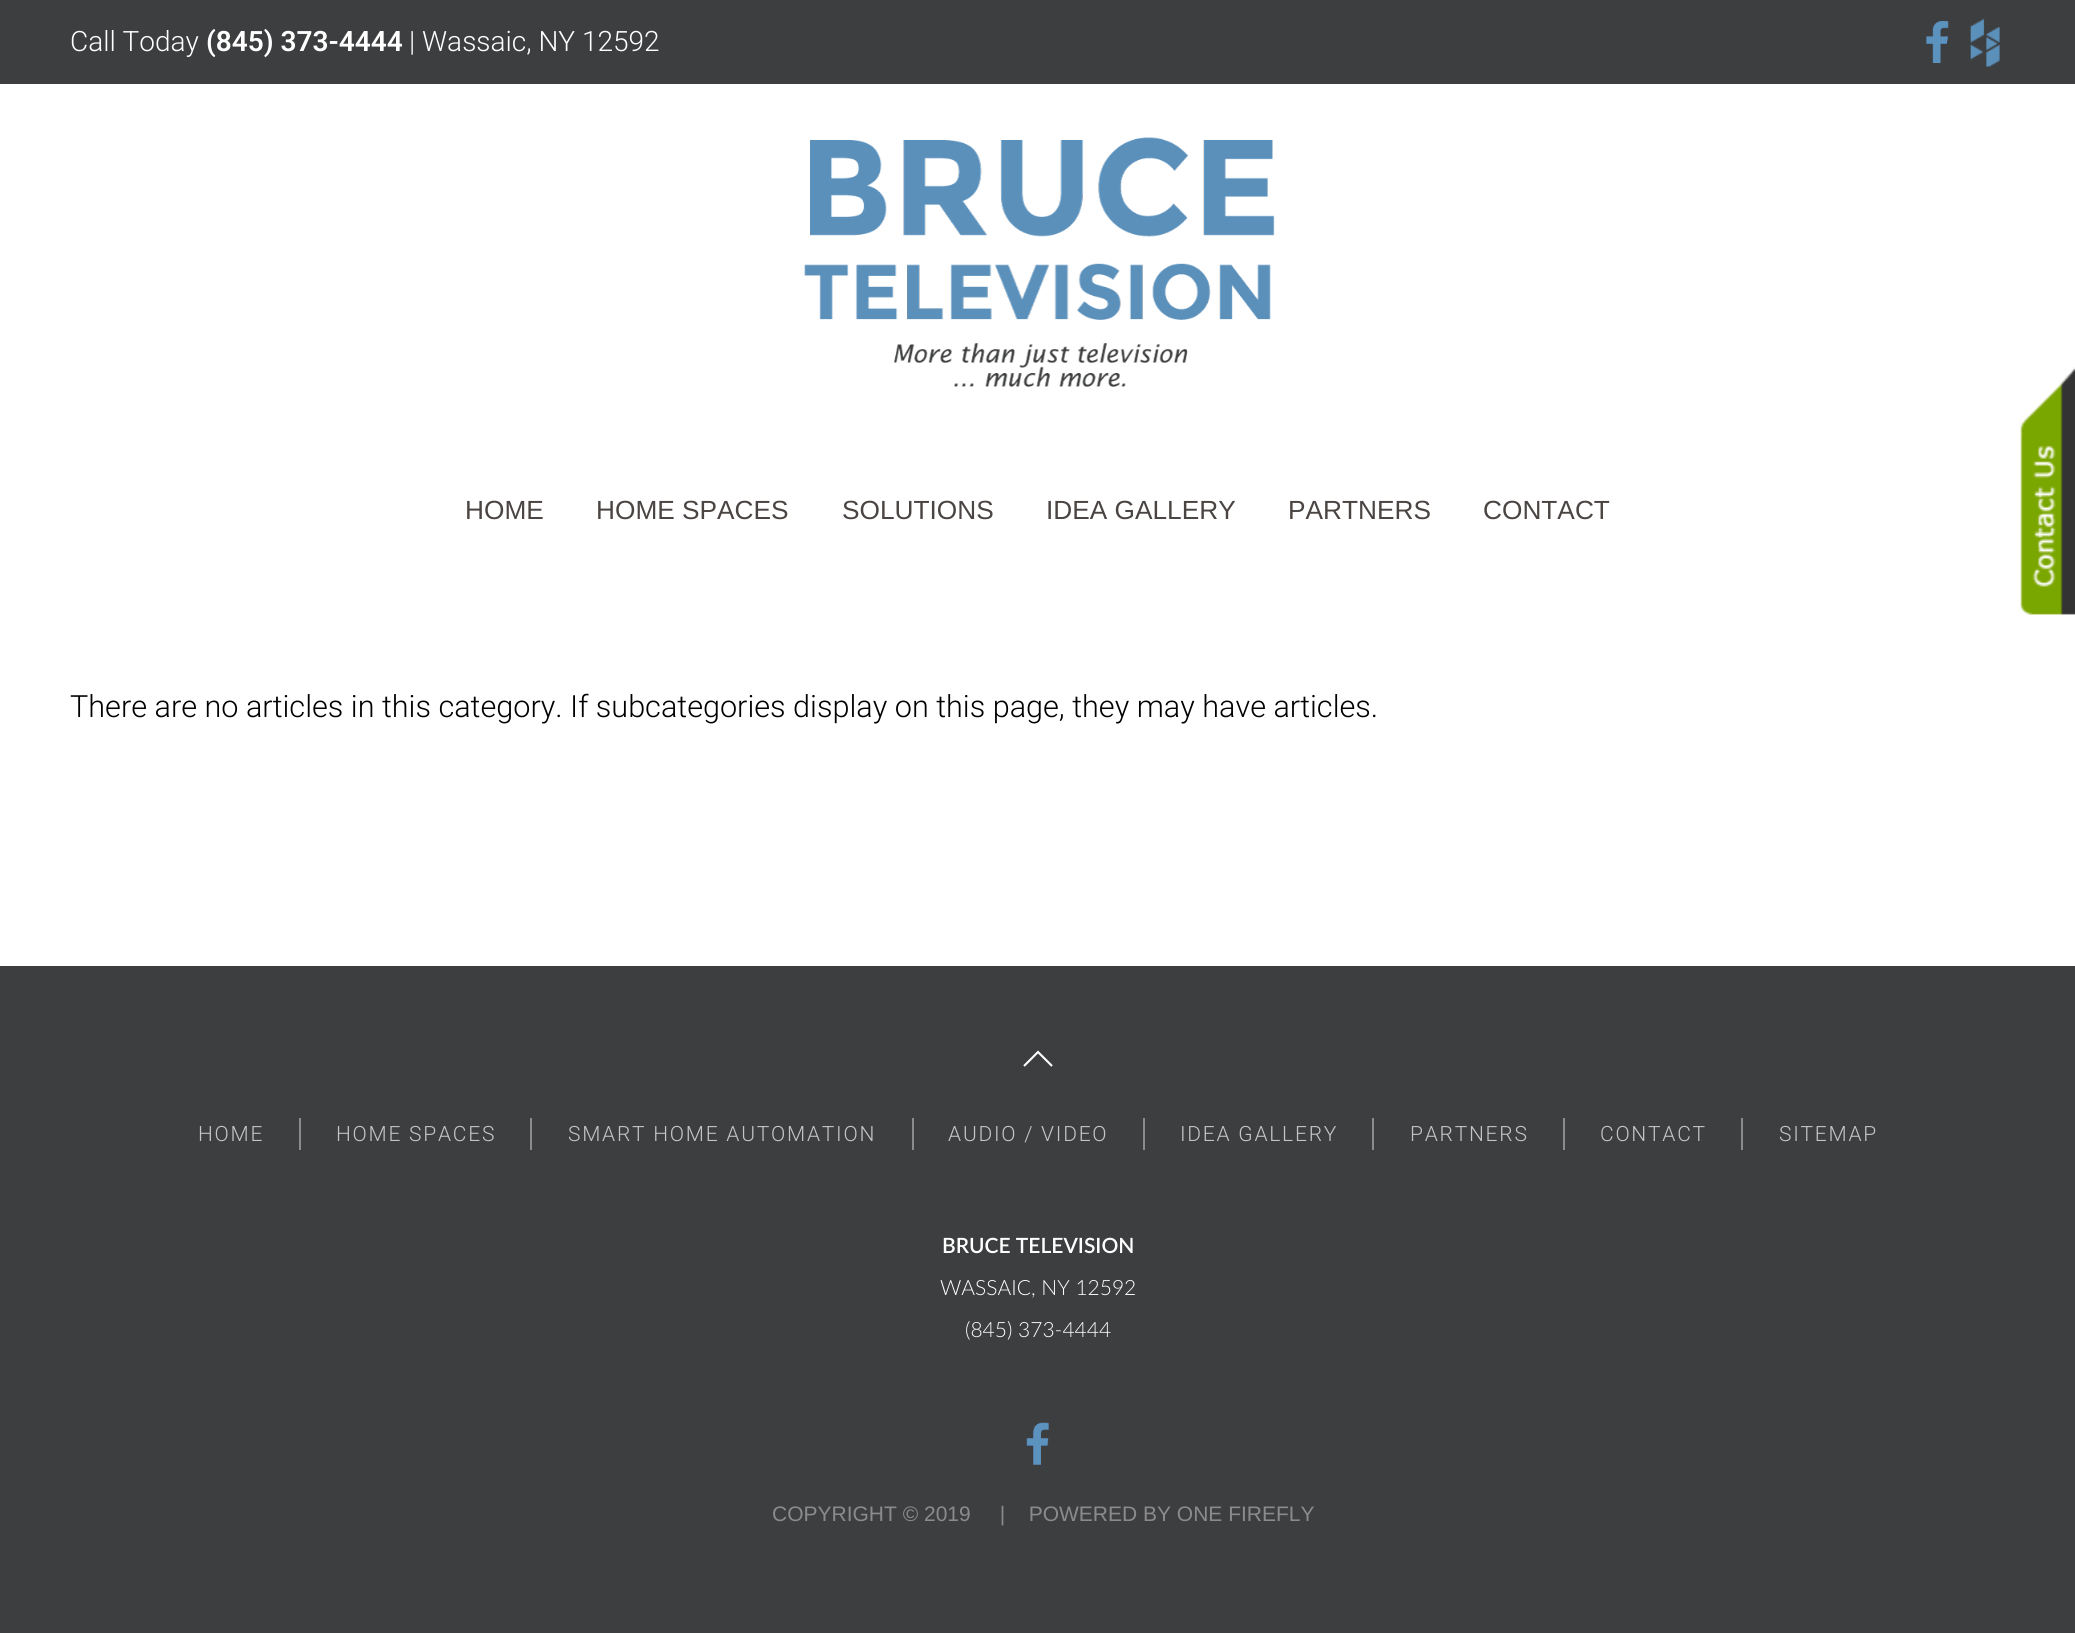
#include <cairo.h>
#include <math.h>
#include <stddef.h>


static void spaced_text(cairo_t *cr, double x, double y, const char *s, double letter, double word) {
    cairo_move_to(cr, x, y);
    while (*s) {
        char ch[5] = {0};
        int n = 0;
        do ch[n++] = *s++; while ((*s & 0xC0) == 0x80);
        cairo_show_text(cr, ch);
        cairo_rel_move_to(cr, letter + word * (*ch == ' '), 0);
    }
}

static void picture(cairo_t *cr, const char *path, double x, double y, double w, double h) {
    cairo_surface_t *image = cairo_image_surface_create_from_png(path);
    cairo_save(cr);
    cairo_set_source_surface(cr, image, x, y);
    cairo_rectangle(cr, x, y, w, h);
    cairo_fill(cr);
    cairo_restore(cr);
    cairo_surface_destroy(image);
}

int main(void) {
    cairo_surface_t *surface = cairo_image_surface_create(CAIRO_FORMAT_RGB24, 2075, 1633);
    cairo_t *cr = cairo_create(surface);
    cairo_font_options_t *options = cairo_font_options_create();
    cairo_font_options_set_hint_metrics(options, CAIRO_HINT_METRICS_OFF);
    cairo_font_options_set_hint_style(options, CAIRO_HINT_STYLE_NONE);
    cairo_set_font_options(cr, options);
    cairo_set_miter_limit(cr, 4);
    cairo_set_source_rgb(cr, 1, 1, 1);
    cairo_paint(cr);
    cairo_set_source_rgb(cr, 0.239, 0.243, 0.247);
    cairo_rectangle(cr, 0, 0, 2075, 84);
    cairo_fill(cr);
    cairo_select_font_face(cr, "Roboto Light", CAIRO_FONT_SLANT_NORMAL, CAIRO_FONT_WEIGHT_NORMAL);
    cairo_set_font_size(cr, 28);
    cairo_set_source_rgb(cr, 1, 1, 1);
    cairo_move_to(cr, 70, 51);
    cairo_show_text(cr, "Call Today");
    cairo_select_font_face(cr, "Roboto SemiBold", CAIRO_FONT_SLANT_NORMAL, CAIRO_FONT_WEIGHT_NORMAL);
    cairo_move_to(cr, 206, 51);
    cairo_show_text(cr, "(845) 373-4444");
    cairo_select_font_face(cr, "Roboto Light", CAIRO_FONT_SLANT_NORMAL, CAIRO_FONT_WEIGHT_NORMAL);
    cairo_move_to(cr, 409, 51);
    cairo_show_text(cr, "| Wassaic, NY 12592");
    picture(cr, "img1.png", 1926, 21, 23, 42);
    picture(cr, "img2.png", 1970, 18, 30, 49);
    picture(cr, "img3.png", 804, 137, 471, 250);
    cairo_select_font_face(cr, "Liberation Sans", CAIRO_FONT_SLANT_NORMAL, CAIRO_FONT_WEIGHT_NORMAL);
    cairo_set_font_size(cr, 26.25);
    cairo_set_source_rgb(cr, 0.29, 0.267, 0.259);
    cairo_move_to(cr, 465, 519);
    cairo_show_text(cr, "HOME");
    cairo_move_to(cr, 596, 519);
    cairo_show_text(cr, "HOME SPACES");
    cairo_move_to(cr, 842, 519);
    cairo_show_text(cr, "SOLUTIONS");
    cairo_move_to(cr, 1046, 519);
    cairo_show_text(cr, "IDEA GALLERY");
    cairo_move_to(cr, 1288, 519);
    cairo_show_text(cr, "PARTNERS");
    cairo_move_to(cr, 1483, 519);
    cairo_show_text(cr, "CONTACT");
    cairo_select_font_face(cr, "Roboto Light", CAIRO_FONT_SLANT_NORMAL, CAIRO_FONT_WEIGHT_NORMAL);
    cairo_set_font_size(cr, 30.6);
    cairo_set_source_rgb(cr, 0, 0, 0);
    cairo_move_to(cr, 70, 717);
    cairo_show_text(cr, "There are no articles in this category. If subcategories display on this page, they may have articles.");
    cairo_set_source_rgb(cr, 0.239, 0.243, 0.247);
    cairo_rectangle(cr, 0, 966, 2075, 667);
    cairo_fill(cr);
    picture(cr, "img4.png", 2020, 367, 55, 248);
    cairo_new_path(cr);
    cairo_move_to(cr, 1024, 1066);
    cairo_line_to(cr, 1038, 1052);
    cairo_line_to(cr, 1052, 1066);
    cairo_set_source_rgb(cr, 1, 1, 1);
    cairo_set_line_width(cr, 2.1);
    cairo_stroke(cr);
    cairo_set_font_size(cr, 21);
    cairo_set_source_rgb(cr, 0.773, 0.773, 0.773);
    spaced_text(cr, 198, 1141, "HOME", 1.75, 0);
    cairo_set_source_rgb(cr, 0.545, 0.545, 0.549);
    cairo_rectangle(cr, 299, 1118, 2, 32);
    cairo_fill(cr);
    cairo_set_source_rgb(cr, 0.773, 0.773, 0.773);
    spaced_text(cr, 336, 1141, "HOME SPACES", 1.75, 0);
    cairo_set_source_rgb(cr, 0.545, 0.545, 0.549);
    cairo_rectangle(cr, 530, 1118, 2, 32);
    cairo_fill(cr);
    cairo_set_source_rgb(cr, 0.773, 0.773, 0.773);
    spaced_text(cr, 568, 1141, "SMART HOME AUTOMATION", 1.75, 0);
    cairo_set_source_rgb(cr, 0.545, 0.545, 0.549);
    cairo_rectangle(cr, 912, 1118, 2, 32);
    cairo_fill(cr);
    cairo_set_source_rgb(cr, 0.773, 0.773, 0.773);
    spaced_text(cr, 948, 1141, "AUDIO / VIDEO", 1.75, 0);
    cairo_set_source_rgb(cr, 0.545, 0.545, 0.549);
    cairo_rectangle(cr, 1143, 1118, 2, 32);
    cairo_fill(cr);
    cairo_set_source_rgb(cr, 0.773, 0.773, 0.773);
    spaced_text(cr, 1180, 1141, "IDEA GALLERY", 1.75, 0);
    cairo_set_source_rgb(cr, 0.545, 0.545, 0.549);
    cairo_rectangle(cr, 1372, 1118, 2, 32);
    cairo_fill(cr);
    cairo_set_source_rgb(cr, 0.773, 0.773, 0.773);
    spaced_text(cr, 1410, 1141, "PARTNERS", 1.75, 0);
    cairo_set_source_rgb(cr, 0.545, 0.545, 0.549);
    cairo_rectangle(cr, 1563, 1118, 2, 32);
    cairo_fill(cr);
    cairo_set_source_rgb(cr, 0.773, 0.773, 0.773);
    spaced_text(cr, 1600, 1141, "CONTACT", 1.75, 0);
    cairo_set_source_rgb(cr, 0.545, 0.545, 0.549);
    cairo_rectangle(cr, 1741, 1118, 2, 32);
    cairo_fill(cr);
    cairo_set_source_rgb(cr, 0.773, 0.773, 0.773);
    spaced_text(cr, 1779, 1141, "SITEMAP", 1.75, 0);
    cairo_select_font_face(cr, "Lato SemiBold", CAIRO_FONT_SLANT_NORMAL, CAIRO_FONT_WEIGHT_NORMAL);
    cairo_set_source_rgb(cr, 1, 1, 1);
    cairo_move_to(cr, 942, 1253);
    cairo_show_text(cr, "BRUCE TELEVISION");
    cairo_select_font_face(cr, "Lato Light", CAIRO_FONT_SLANT_NORMAL, CAIRO_FONT_WEIGHT_NORMAL);
    cairo_move_to(cr, 940, 1295);
    cairo_show_text(cr, "WASSAIC, NY 12592");
    cairo_move_to(cr, 965, 1337);
    cairo_show_text(cr, "(845) 373-4444");
    picture(cr, "img5.png", 1026, 1422, 23, 43);
    cairo_select_font_face(cr, "Liberation Sans", CAIRO_FONT_SLANT_NORMAL, CAIRO_FONT_WEIGHT_NORMAL);
    cairo_set_source_rgb(cr, 0.545, 0.545, 0.549);
    cairo_move_to(cr, 772, 1521);
    cairo_show_text(cr, "COPYRIGHT © 2019     |    POWERED BY ONE FIREFLY");
    cairo_surface_write_to_png(surface, "page.png");
    cairo_font_options_destroy(options);
    cairo_destroy(cr);
    cairo_surface_destroy(surface);
    return 0;
}
